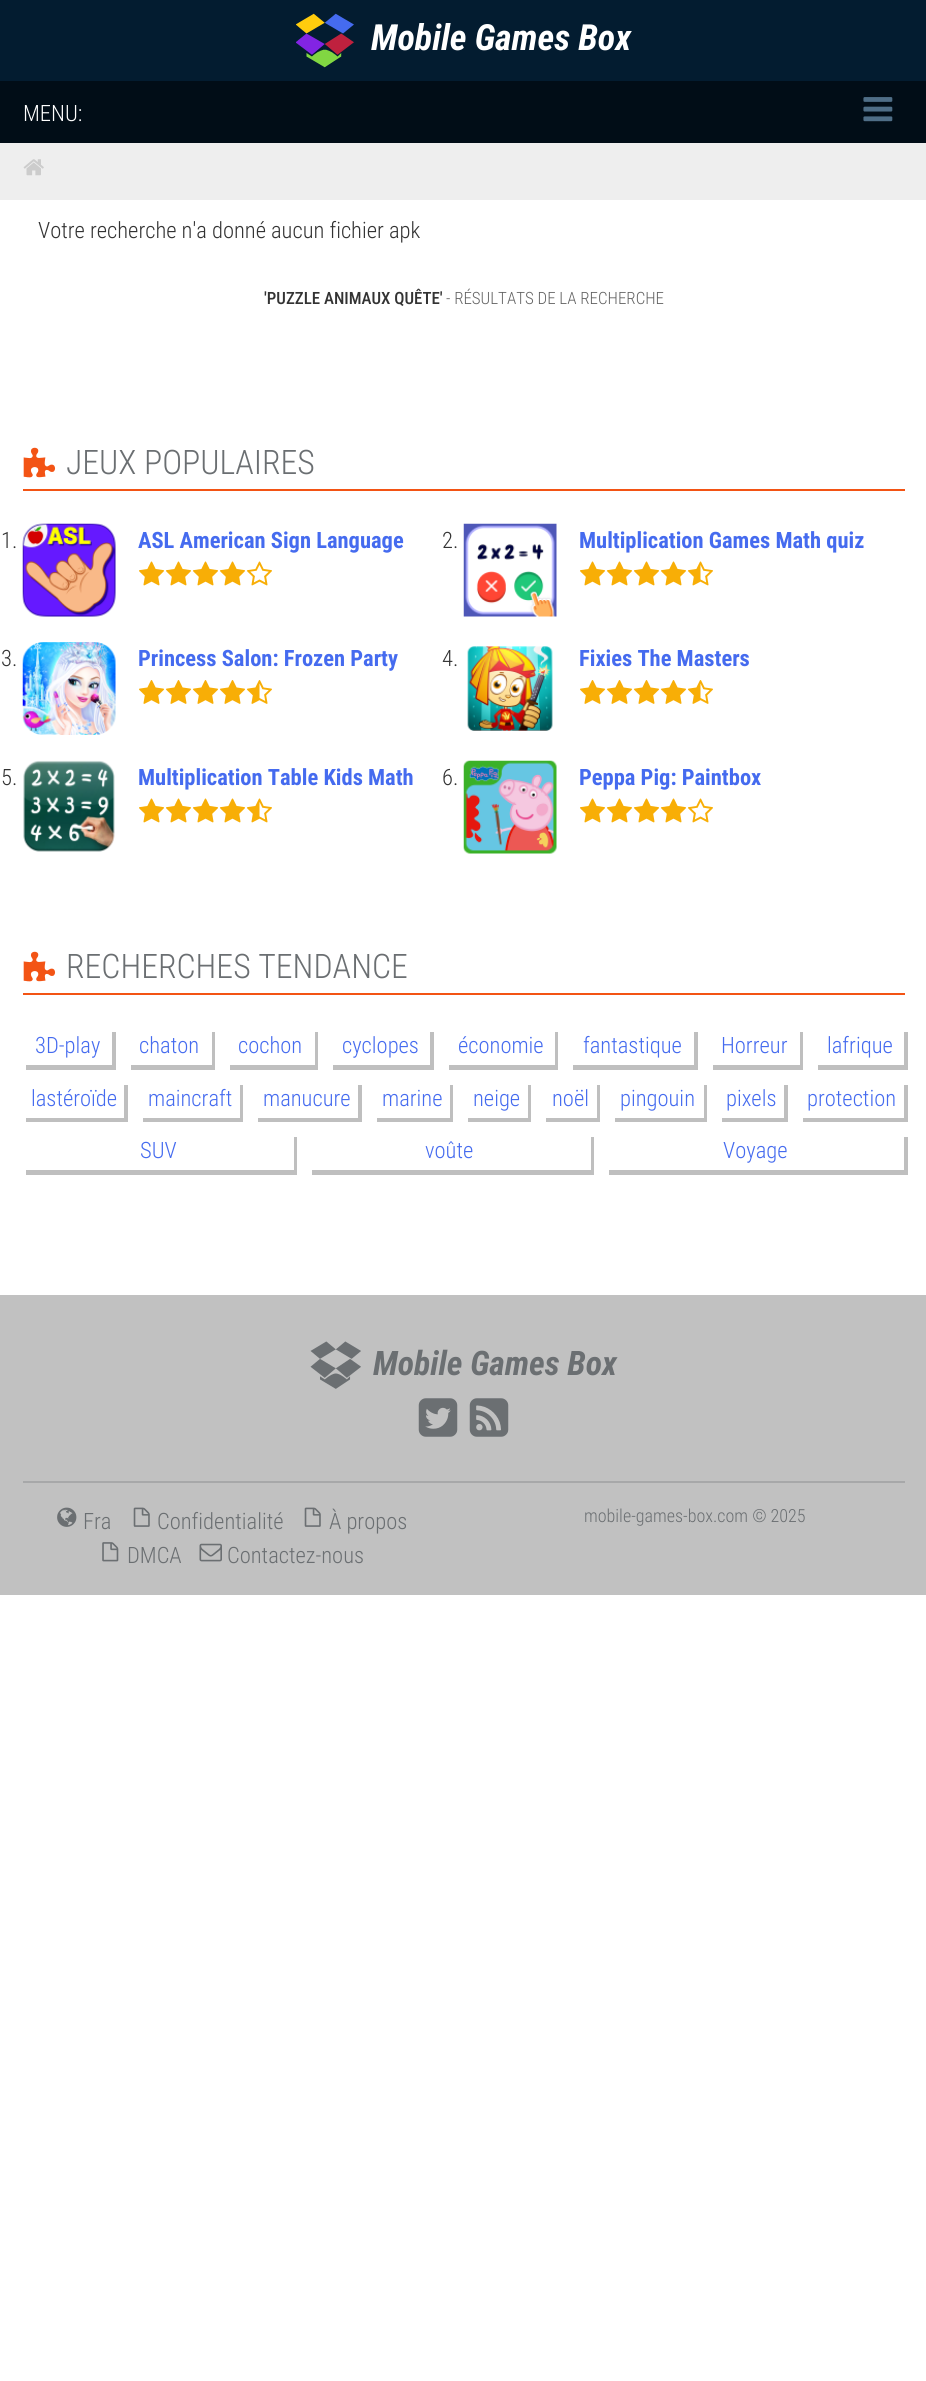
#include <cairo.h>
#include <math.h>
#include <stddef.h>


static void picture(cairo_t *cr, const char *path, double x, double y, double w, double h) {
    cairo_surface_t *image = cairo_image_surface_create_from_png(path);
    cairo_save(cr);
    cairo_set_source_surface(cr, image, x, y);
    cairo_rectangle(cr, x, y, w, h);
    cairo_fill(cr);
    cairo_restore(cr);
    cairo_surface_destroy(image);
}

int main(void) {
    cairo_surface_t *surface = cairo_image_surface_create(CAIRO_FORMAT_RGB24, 926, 2381);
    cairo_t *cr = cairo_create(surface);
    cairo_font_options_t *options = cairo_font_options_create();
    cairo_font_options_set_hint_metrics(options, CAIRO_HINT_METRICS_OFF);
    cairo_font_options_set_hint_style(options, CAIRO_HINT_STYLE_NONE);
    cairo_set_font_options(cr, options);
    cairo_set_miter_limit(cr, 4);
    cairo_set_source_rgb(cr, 1, 1, 1);
    cairo_paint(cr);
    cairo_set_source_rgb(cr, 0.012, 0.11, 0.188);
    cairo_rectangle(cr, 0, 0, 926, 81);
    cairo_fill(cr);
    picture(cr, "img1.png", 296, 13, 58, 55);
    cairo_select_font_face(cr, "Roboto Condensed", CAIRO_FONT_SLANT_ITALIC, CAIRO_FONT_WEIGHT_BOLD);
    cairo_set_font_size(cr, 36);
    cairo_set_source_rgb(cr, 1, 1, 1);
    cairo_move_to(cr, 371, 50);
    cairo_show_text(cr, "Mobile Games Box");
    cairo_set_source_rgb(cr, 0.004, 0.051, 0.09);
    cairo_rectangle(cr, 0, 81, 926, 62);
    cairo_fill(cr);
    cairo_select_font_face(cr, "Roboto Condensed Light", CAIRO_FONT_SLANT_NORMAL, CAIRO_FONT_WEIGHT_NORMAL);
    cairo_set_font_size(cr, 22.5);
    cairo_set_source_rgb(cr, 1, 1, 1);
    cairo_move_to(cr, 23, 121);
    cairo_show_text(cr, "MENU:");
    picture(cr, "img2.png", 863, 97, 30, 25);
    cairo_set_source_rgb(cr, 0.933, 0.933, 0.933);
    cairo_rectangle(cr, 0, 143, 926, 57);
    cairo_fill(cr);
    picture(cr, "img3.png", 23, 159, 21, 17);
    cairo_set_source_rgb(cr, 0.2, 0.2, 0.2);
    cairo_move_to(cr, 38, 238);
    cairo_show_text(cr, "Votre recherche n'a donné aucun fichier apk");
    cairo_select_font_face(cr, "Roboto Condensed Medium", CAIRO_FONT_SLANT_NORMAL, CAIRO_FONT_WEIGHT_NORMAL);
    cairo_set_font_size(cr, 16.9);
    cairo_move_to(cr, 264, 304);
    cairo_show_text(cr, "'PUZZLE ANIMAUX QUÊTE'");
    cairo_select_font_face(cr, "Roboto Condensed Light", CAIRO_FONT_SLANT_NORMAL, CAIRO_FONT_WEIGHT_NORMAL);
    cairo_set_source_rgb(cr, 0.392, 0.392, 0.392);
    cairo_move_to(cr, 446, 304);
    cairo_show_text(cr, "- RÉSULTATS DE LA RECHERCHE");
    cairo_set_source_rgb(cr, 0.953, 0.329, 0.082);
    cairo_rectangle(cr, 23, 489, 882, 2);
    cairo_fill(cr);
    picture(cr, "img4.png", 23, 447, 33, 31);
    cairo_set_font_size(cr, 33.75);
    cairo_set_source_rgb(cr, 0.42, 0.435, 0.447);
    cairo_move_to(cr, 66, 474);
    cairo_show_text(cr, "JEUX POPULAIRES");
    cairo_set_font_size(cr, 22.5);
    cairo_set_source_rgb(cr, 0.2, 0.2, 0.2);
    cairo_move_to(cr, 1, 548);
    cairo_show_text(cr, "1.");
    picture(cr, "img5.png", 22, 523, 94, 94);
    cairo_select_font_face(cr, "Roboto Condensed", CAIRO_FONT_SLANT_NORMAL, CAIRO_FONT_WEIGHT_BOLD);
    cairo_set_source_rgb(cr, 0.271, 0.42, 0.937);
    cairo_move_to(cr, 138, 548);
    cairo_show_text(cr, "ASL American Sign Language");
    picture(cr, "img6.png", 139, 561, 25, 25);
    picture(cr, "img6.png", 166, 561, 25, 25);
    picture(cr, "img6.png", 193, 561, 25, 25);
    picture(cr, "img6.png", 220, 561, 25, 25);
    picture(cr, "img7.png", 247, 561, 25, 25);
    cairo_select_font_face(cr, "Roboto Condensed Light", CAIRO_FONT_SLANT_NORMAL, CAIRO_FONT_WEIGHT_NORMAL);
    cairo_set_source_rgb(cr, 0.2, 0.2, 0.2);
    cairo_move_to(cr, 442, 548);
    cairo_show_text(cr, "2.");
    picture(cr, "img8.png", 463, 523, 94, 94);
    cairo_select_font_face(cr, "Roboto Condensed", CAIRO_FONT_SLANT_NORMAL, CAIRO_FONT_WEIGHT_BOLD);
    cairo_set_source_rgb(cr, 0.271, 0.42, 0.937);
    cairo_move_to(cr, 579, 548);
    cairo_show_text(cr, "Multiplication Games Math quiz");
    picture(cr, "img6.png", 580, 561, 25, 25);
    picture(cr, "img6.png", 607, 561, 25, 25);
    picture(cr, "img6.png", 634, 561, 25, 25);
    picture(cr, "img6.png", 661, 561, 25, 25);
    picture(cr, "img9.png", 688, 561, 25, 25);
    cairo_select_font_face(cr, "Roboto Condensed Light", CAIRO_FONT_SLANT_NORMAL, CAIRO_FONT_WEIGHT_NORMAL);
    cairo_set_source_rgb(cr, 0.2, 0.2, 0.2);
    cairo_move_to(cr, 1, 666);
    cairo_show_text(cr, "3.");
    picture(cr, "img10.png", 22, 642, 94, 93);
    cairo_select_font_face(cr, "Roboto Condensed", CAIRO_FONT_SLANT_NORMAL, CAIRO_FONT_WEIGHT_BOLD);
    cairo_set_source_rgb(cr, 0.271, 0.42, 0.937);
    cairo_move_to(cr, 138, 666);
    cairo_show_text(cr, "Princess Salon: Frozen Party");
    picture(cr, "img11.png", 139, 680, 25, 24);
    picture(cr, "img11.png", 166, 680, 25, 24);
    picture(cr, "img11.png", 193, 680, 25, 24);
    picture(cr, "img11.png", 220, 680, 25, 24);
    picture(cr, "img12.png", 247, 680, 25, 24);
    cairo_select_font_face(cr, "Roboto Condensed Light", CAIRO_FONT_SLANT_NORMAL, CAIRO_FONT_WEIGHT_NORMAL);
    cairo_set_source_rgb(cr, 0.2, 0.2, 0.2);
    cairo_move_to(cr, 442, 666);
    cairo_show_text(cr, "4.");
    picture(cr, "img13.png", 467, 646, 86, 85);
    cairo_select_font_face(cr, "Roboto Condensed", CAIRO_FONT_SLANT_NORMAL, CAIRO_FONT_WEIGHT_BOLD);
    cairo_set_source_rgb(cr, 0.271, 0.42, 0.937);
    cairo_move_to(cr, 579, 666);
    cairo_show_text(cr, "Fixies The Masters");
    picture(cr, "img11.png", 580, 680, 25, 24);
    picture(cr, "img11.png", 607, 680, 25, 24);
    picture(cr, "img11.png", 634, 680, 25, 24);
    picture(cr, "img11.png", 661, 680, 25, 24);
    picture(cr, "img12.png", 688, 680, 25, 24);
    cairo_select_font_face(cr, "Roboto Condensed Light", CAIRO_FONT_SLANT_NORMAL, CAIRO_FONT_WEIGHT_NORMAL);
    cairo_set_source_rgb(cr, 0.2, 0.2, 0.2);
    cairo_move_to(cr, 1, 785);
    cairo_show_text(cr, "5.");
    picture(cr, "img14.png", 23, 760, 92, 92);
    cairo_select_font_face(cr, "Roboto Condensed", CAIRO_FONT_SLANT_NORMAL, CAIRO_FONT_WEIGHT_BOLD);
    cairo_set_source_rgb(cr, 0.271, 0.42, 0.937);
    cairo_move_to(cr, 138, 785);
    cairo_show_text(cr, "Multiplication Table Kids Math");
    picture(cr, "img6.png", 139, 798, 25, 25);
    picture(cr, "img6.png", 166, 798, 25, 25);
    picture(cr, "img6.png", 193, 798, 25, 25);
    picture(cr, "img6.png", 220, 798, 25, 25);
    picture(cr, "img9.png", 247, 798, 25, 25);
    cairo_select_font_face(cr, "Roboto Condensed Light", CAIRO_FONT_SLANT_NORMAL, CAIRO_FONT_WEIGHT_NORMAL);
    cairo_set_source_rgb(cr, 0.2, 0.2, 0.2);
    cairo_move_to(cr, 442, 785);
    cairo_show_text(cr, "6.");
    picture(cr, "img15.png", 463, 760, 94, 94);
    cairo_select_font_face(cr, "Roboto Condensed", CAIRO_FONT_SLANT_NORMAL, CAIRO_FONT_WEIGHT_BOLD);
    cairo_set_source_rgb(cr, 0.271, 0.42, 0.937);
    cairo_move_to(cr, 579, 785);
    cairo_show_text(cr, "Peppa Pig: Paintbox");
    picture(cr, "img6.png", 580, 798, 25, 25);
    picture(cr, "img6.png", 607, 798, 25, 25);
    picture(cr, "img6.png", 634, 798, 25, 25);
    picture(cr, "img6.png", 661, 798, 25, 25);
    picture(cr, "img7.png", 688, 798, 25, 25);
    cairo_set_source_rgb(cr, 0.953, 0.329, 0.082);
    cairo_rectangle(cr, 23, 993, 882, 2);
    cairo_fill(cr);
    picture(cr, "img4.png", 23, 951, 33, 31);
    cairo_select_font_face(cr, "Roboto Condensed Light", CAIRO_FONT_SLANT_NORMAL, CAIRO_FONT_WEIGHT_NORMAL);
    cairo_set_font_size(cr, 33.75);
    cairo_set_source_rgb(cr, 0.42, 0.435, 0.447);
    cairo_move_to(cr, 66, 978);
    cairo_show_text(cr, "RECHERCHES TENDANCE");
    cairo_set_source_rgb(cr, 0.749, 0.749, 0.749);
    cairo_new_path(cr);
    cairo_move_to(cr, 26, 1065);
    cairo_line_to(cr, 26, 1070);
    cairo_line_to(cr, 116, 1070);
    cairo_line_to(cr, 116, 1032);
    cairo_line_to(cr, 112, 1032);
    cairo_line_to(cr, 112, 1065);
    cairo_close_path(cr);
    cairo_fill(cr);
    cairo_set_font_size(cr, 22.5);
    cairo_set_source_rgb(cr, 0.271, 0.42, 0.937);
    cairo_move_to(cr, 35, 1053);
    cairo_show_text(cr, "3D-play");
    cairo_set_source_rgb(cr, 0.749, 0.749, 0.749);
    cairo_new_path(cr);
    cairo_move_to(cr, 131, 1065);
    cairo_line_to(cr, 131, 1070);
    cairo_line_to(cr, 215, 1070);
    cairo_line_to(cr, 215, 1032);
    cairo_line_to(cr, 212, 1032);
    cairo_line_to(cr, 212, 1065);
    cairo_close_path(cr);
    cairo_fill(cr);
    cairo_set_source_rgb(cr, 0.271, 0.42, 0.937);
    cairo_move_to(cr, 139, 1053);
    cairo_show_text(cr, "chaton");
    cairo_set_source_rgb(cr, 0.749, 0.749, 0.749);
    cairo_new_path(cr);
    cairo_move_to(cr, 230, 1065);
    cairo_line_to(cr, 230, 1070);
    cairo_line_to(cr, 318, 1070);
    cairo_line_to(cr, 318, 1032);
    cairo_line_to(cr, 315, 1032);
    cairo_line_to(cr, 315, 1065);
    cairo_close_path(cr);
    cairo_fill(cr);
    cairo_set_source_rgb(cr, 0.271, 0.42, 0.937);
    cairo_move_to(cr, 238, 1053);
    cairo_show_text(cr, "cochon");
    cairo_set_source_rgb(cr, 0.749, 0.749, 0.749);
    cairo_new_path(cr);
    cairo_move_to(cr, 333, 1065);
    cairo_line_to(cr, 333, 1070);
    cairo_line_to(cr, 434, 1070);
    cairo_line_to(cr, 434, 1032);
    cairo_line_to(cr, 430, 1032);
    cairo_line_to(cr, 430, 1065);
    cairo_close_path(cr);
    cairo_fill(cr);
    cairo_set_source_rgb(cr, 0.271, 0.42, 0.937);
    cairo_move_to(cr, 342, 1053);
    cairo_show_text(cr, "cyclopes");
    cairo_set_source_rgb(cr, 0.749, 0.749, 0.749);
    cairo_new_path(cr);
    cairo_move_to(cr, 449, 1065);
    cairo_line_to(cr, 449, 1070);
    cairo_line_to(cr, 558, 1070);
    cairo_line_to(cr, 558, 1032);
    cairo_line_to(cr, 555, 1032);
    cairo_line_to(cr, 555, 1065);
    cairo_close_path(cr);
    cairo_fill(cr);
    cairo_set_source_rgb(cr, 0.271, 0.42, 0.937);
    cairo_move_to(cr, 458, 1053);
    cairo_show_text(cr, "économie");
    cairo_set_source_rgb(cr, 0.749, 0.749, 0.749);
    cairo_new_path(cr);
    cairo_move_to(cr, 573, 1065);
    cairo_line_to(cr, 573, 1070);
    cairo_line_to(cr, 698, 1070);
    cairo_line_to(cr, 698, 1032);
    cairo_line_to(cr, 694, 1032);
    cairo_line_to(cr, 694, 1065);
    cairo_close_path(cr);
    cairo_fill(cr);
    cairo_set_source_rgb(cr, 0.271, 0.42, 0.937);
    cairo_move_to(cr, 583, 1053);
    cairo_show_text(cr, "fantastique");
    cairo_set_source_rgb(cr, 0.749, 0.749, 0.749);
    cairo_new_path(cr);
    cairo_move_to(cr, 713, 1065);
    cairo_line_to(cr, 713, 1070);
    cairo_line_to(cr, 803, 1070);
    cairo_line_to(cr, 803, 1032);
    cairo_line_to(cr, 800, 1032);
    cairo_line_to(cr, 800, 1065);
    cairo_close_path(cr);
    cairo_fill(cr);
    cairo_set_source_rgb(cr, 0.271, 0.42, 0.937);
    cairo_move_to(cr, 721, 1053);
    cairo_show_text(cr, "Horreur");
    cairo_set_source_rgb(cr, 0.749, 0.749, 0.749);
    cairo_new_path(cr);
    cairo_move_to(cr, 818, 1065);
    cairo_line_to(cr, 818, 1070);
    cairo_line_to(cr, 908, 1070);
    cairo_line_to(cr, 908, 1032);
    cairo_line_to(cr, 904, 1032);
    cairo_line_to(cr, 904, 1065);
    cairo_close_path(cr);
    cairo_fill(cr);
    cairo_set_source_rgb(cr, 0.271, 0.42, 0.937);
    cairo_move_to(cr, 827, 1053);
    cairo_show_text(cr, "lafrique");
    cairo_set_source_rgb(cr, 0.749, 0.749, 0.749);
    cairo_new_path(cr);
    cairo_move_to(cr, 26, 1118);
    cairo_line_to(cr, 26, 1122);
    cairo_line_to(cr, 128, 1122);
    cairo_line_to(cr, 128, 1085);
    cairo_line_to(cr, 124, 1085);
    cairo_line_to(cr, 124, 1118);
    cairo_close_path(cr);
    cairo_fill(cr);
    cairo_set_source_rgb(cr, 0.271, 0.42, 0.937);
    cairo_move_to(cr, 31, 1106);
    cairo_show_text(cr, "lastéroïde");
    cairo_set_source_rgb(cr, 0.749, 0.749, 0.749);
    cairo_new_path(cr);
    cairo_move_to(cr, 143, 1118);
    cairo_line_to(cr, 143, 1122);
    cairo_line_to(cr, 243, 1122);
    cairo_line_to(cr, 243, 1085);
    cairo_line_to(cr, 240, 1085);
    cairo_line_to(cr, 240, 1118);
    cairo_close_path(cr);
    cairo_fill(cr);
    cairo_set_source_rgb(cr, 0.271, 0.42, 0.937);
    cairo_move_to(cr, 148, 1106);
    cairo_show_text(cr, "maincraft");
    cairo_set_source_rgb(cr, 0.749, 0.749, 0.749);
    cairo_new_path(cr);
    cairo_move_to(cr, 258, 1118);
    cairo_line_to(cr, 258, 1122);
    cairo_line_to(cr, 362, 1122);
    cairo_line_to(cr, 362, 1085);
    cairo_line_to(cr, 358, 1085);
    cairo_line_to(cr, 358, 1118);
    cairo_close_path(cr);
    cairo_fill(cr);
    cairo_set_source_rgb(cr, 0.271, 0.42, 0.937);
    cairo_move_to(cr, 263, 1106);
    cairo_show_text(cr, "manucure");
    cairo_set_source_rgb(cr, 0.749, 0.749, 0.749);
    cairo_new_path(cr);
    cairo_move_to(cr, 377, 1118);
    cairo_line_to(cr, 377, 1122);
    cairo_line_to(cr, 453, 1122);
    cairo_line_to(cr, 453, 1085);
    cairo_line_to(cr, 450, 1085);
    cairo_line_to(cr, 450, 1118);
    cairo_close_path(cr);
    cairo_fill(cr);
    cairo_set_source_rgb(cr, 0.271, 0.42, 0.937);
    cairo_move_to(cr, 382, 1106);
    cairo_show_text(cr, "marine");
    cairo_set_source_rgb(cr, 0.749, 0.749, 0.749);
    cairo_new_path(cr);
    cairo_move_to(cr, 468, 1118);
    cairo_line_to(cr, 468, 1122);
    cairo_line_to(cr, 531, 1122);
    cairo_line_to(cr, 531, 1085);
    cairo_line_to(cr, 528, 1085);
    cairo_line_to(cr, 528, 1118);
    cairo_close_path(cr);
    cairo_fill(cr);
    cairo_set_source_rgb(cr, 0.271, 0.42, 0.937);
    cairo_move_to(cr, 473, 1106);
    cairo_show_text(cr, "neige");
    cairo_set_source_rgb(cr, 0.749, 0.749, 0.749);
    cairo_new_path(cr);
    cairo_move_to(cr, 546, 1118);
    cairo_line_to(cr, 546, 1122);
    cairo_line_to(cr, 600, 1122);
    cairo_line_to(cr, 600, 1085);
    cairo_line_to(cr, 597, 1085);
    cairo_line_to(cr, 597, 1118);
    cairo_close_path(cr);
    cairo_fill(cr);
    cairo_set_source_rgb(cr, 0.271, 0.42, 0.937);
    cairo_move_to(cr, 552, 1106);
    cairo_show_text(cr, "noël");
    cairo_set_source_rgb(cr, 0.749, 0.749, 0.749);
    cairo_new_path(cr);
    cairo_move_to(cr, 615, 1118);
    cairo_line_to(cr, 615, 1122);
    cairo_line_to(cr, 707, 1122);
    cairo_line_to(cr, 707, 1085);
    cairo_line_to(cr, 704, 1085);
    cairo_line_to(cr, 704, 1118);
    cairo_close_path(cr);
    cairo_fill(cr);
    cairo_set_source_rgb(cr, 0.271, 0.42, 0.937);
    cairo_move_to(cr, 620, 1106);
    cairo_show_text(cr, "pingouin");
    cairo_set_source_rgb(cr, 0.749, 0.749, 0.749);
    cairo_new_path(cr);
    cairo_move_to(cr, 722, 1118);
    cairo_line_to(cr, 722, 1122);
    cairo_line_to(cr, 788, 1122);
    cairo_line_to(cr, 788, 1085);
    cairo_line_to(cr, 784, 1085);
    cairo_line_to(cr, 784, 1118);
    cairo_close_path(cr);
    cairo_fill(cr);
    cairo_set_source_rgb(cr, 0.271, 0.42, 0.937);
    cairo_move_to(cr, 726, 1106);
    cairo_show_text(cr, "pixels");
    cairo_set_source_rgb(cr, 0.749, 0.749, 0.749);
    cairo_new_path(cr);
    cairo_move_to(cr, 803, 1118);
    cairo_line_to(cr, 803, 1122);
    cairo_line_to(cr, 908, 1122);
    cairo_line_to(cr, 908, 1085);
    cairo_line_to(cr, 904, 1085);
    cairo_line_to(cr, 904, 1118);
    cairo_close_path(cr);
    cairo_fill(cr);
    cairo_set_source_rgb(cr, 0.271, 0.42, 0.937);
    cairo_move_to(cr, 807, 1106);
    cairo_show_text(cr, "protection");
    cairo_set_source_rgb(cr, 0.749, 0.749, 0.749);
    cairo_new_path(cr);
    cairo_move_to(cr, 26, 1170);
    cairo_line_to(cr, 26, 1175);
    cairo_line_to(cr, 297, 1175);
    cairo_line_to(cr, 297, 1137);
    cairo_line_to(cr, 294, 1137);
    cairo_line_to(cr, 294, 1170);
    cairo_close_path(cr);
    cairo_fill(cr);
    cairo_set_source_rgb(cr, 0.271, 0.42, 0.937);
    cairo_move_to(cr, 140, 1158);
    cairo_show_text(cr, "SUV");
    cairo_set_source_rgb(cr, 0.749, 0.749, 0.749);
    cairo_new_path(cr);
    cairo_move_to(cr, 312, 1170);
    cairo_line_to(cr, 312, 1175);
    cairo_line_to(cr, 594, 1175);
    cairo_line_to(cr, 594, 1137);
    cairo_line_to(cr, 591, 1137);
    cairo_line_to(cr, 591, 1170);
    cairo_close_path(cr);
    cairo_fill(cr);
    cairo_set_source_rgb(cr, 0.271, 0.42, 0.937);
    cairo_move_to(cr, 425, 1158);
    cairo_show_text(cr, "voûte");
    cairo_set_source_rgb(cr, 0.749, 0.749, 0.749);
    cairo_new_path(cr);
    cairo_move_to(cr, 609, 1170);
    cairo_line_to(cr, 609, 1175);
    cairo_line_to(cr, 908, 1175);
    cairo_line_to(cr, 908, 1137);
    cairo_line_to(cr, 904, 1137);
    cairo_line_to(cr, 904, 1170);
    cairo_close_path(cr);
    cairo_fill(cr);
    cairo_set_source_rgb(cr, 0.271, 0.42, 0.937);
    cairo_move_to(cr, 723, 1158);
    cairo_show_text(cr, "Voyage");
    cairo_set_source_rgb(cr, 0.757, 0.757, 0.757);
    cairo_rectangle(cr, 0, 1295, 926, 300);
    cairo_fill(cr);
    picture(cr, "img16.png", 310, 1341, 51, 48);
    cairo_select_font_face(cr, "Roboto Condensed", CAIRO_FONT_SLANT_ITALIC, CAIRO_FONT_WEIGHT_BOLD);
    cairo_set_font_size(cr, 33.75);
    cairo_set_source_rgb(cr, 0.42, 0.435, 0.447);
    cairo_move_to(cr, 373, 1375);
    cairo_show_text(cr, "Mobile Games Box");
    picture(cr, "img17.png", 418, 1398, 40, 39);
    picture(cr, "img18.png", 469, 1398, 40, 39);
    cairo_set_source_rgb(cr, 0.655, 0.659, 0.663);
    cairo_rectangle(cr, 23, 1481, 882, 2);
    cairo_fill(cr);
    picture(cr, "img19.png", 57, 1507, 20, 20);
    cairo_select_font_face(cr, "Roboto Condensed Light", CAIRO_FONT_SLANT_NORMAL, CAIRO_FONT_WEIGHT_NORMAL);
    cairo_set_font_size(cr, 22.5);
    cairo_set_source_rgb(cr, 0.42, 0.435, 0.447);
    cairo_move_to(cr, 83, 1529);
    cairo_show_text(cr, "Fra");
    picture(cr, "img20.png", 133, 1507, 17, 20);
    cairo_move_to(cr, 157, 1529);
    cairo_show_text(cr, "Confidentialité");
    picture(cr, "img20.png", 304, 1507, 17, 20);
    cairo_move_to(cr, 329, 1529);
    cairo_show_text(cr, "À propos");
    picture(cr, "img21.png", 102, 1542, 17, 20);
    cairo_move_to(cr, 127, 1563);
    cairo_show_text(cr, "DMCA");
    picture(cr, "img22.png", 199, 1543, 23, 19);
    cairo_move_to(cr, 227, 1563);
    cairo_show_text(cr, "Contactez-nous");
    cairo_set_font_size(cr, 18);
    cairo_move_to(cr, 584, 1522);
    cairo_show_text(cr, "mobile-games-box.com © 2025");
    cairo_surface_write_to_png(surface, "page.png");
    cairo_font_options_destroy(options);
    cairo_destroy(cr);
    cairo_surface_destroy(surface);
    return 0;
}
